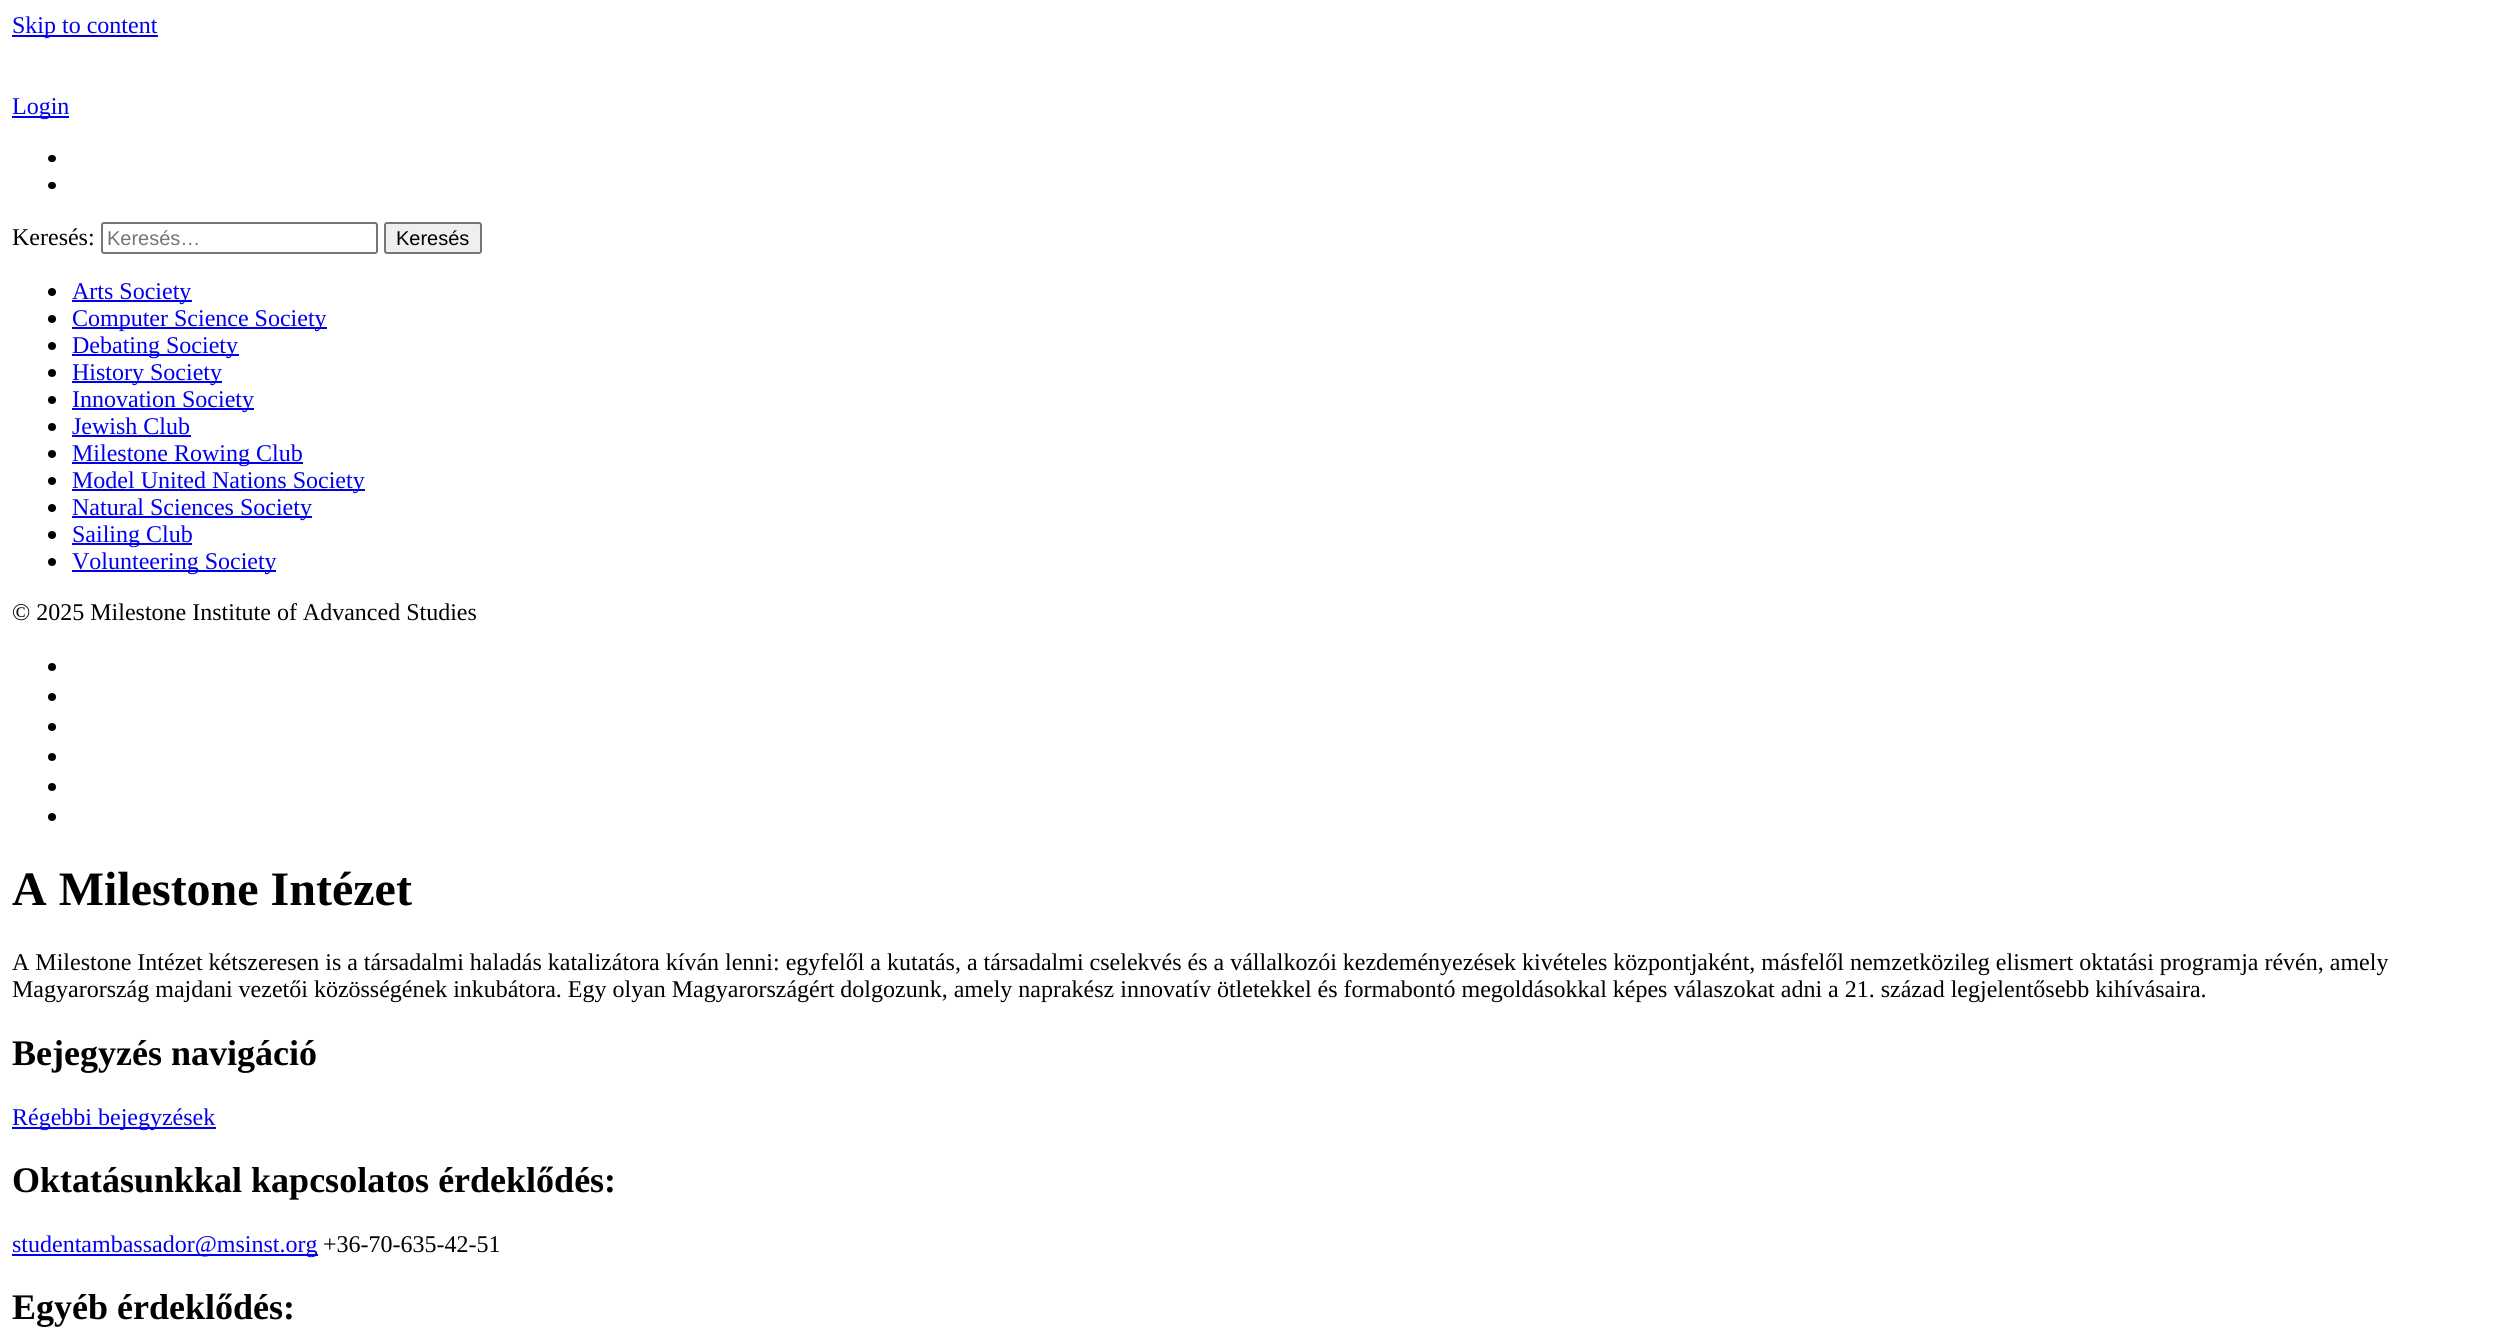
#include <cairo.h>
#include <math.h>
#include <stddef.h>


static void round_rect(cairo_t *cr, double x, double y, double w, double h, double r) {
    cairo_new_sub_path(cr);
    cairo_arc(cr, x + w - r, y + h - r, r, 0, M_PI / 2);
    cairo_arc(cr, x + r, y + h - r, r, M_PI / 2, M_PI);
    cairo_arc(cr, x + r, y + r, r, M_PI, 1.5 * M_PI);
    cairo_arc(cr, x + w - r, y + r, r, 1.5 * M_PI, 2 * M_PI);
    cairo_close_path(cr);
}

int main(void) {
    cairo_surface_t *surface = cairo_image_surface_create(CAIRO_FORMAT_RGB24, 2508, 1339);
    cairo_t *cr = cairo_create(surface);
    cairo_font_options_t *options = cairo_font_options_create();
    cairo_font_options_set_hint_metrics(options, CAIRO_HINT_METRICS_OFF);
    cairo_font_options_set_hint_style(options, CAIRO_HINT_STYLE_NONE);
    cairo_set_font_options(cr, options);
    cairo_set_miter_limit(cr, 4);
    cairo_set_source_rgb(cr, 1, 1, 1);
    cairo_paint(cr);
    cairo_set_source_rgb(cr, 0, 0, 0.933);
    cairo_rectangle(cr, 12, 35, 146, 2);
    cairo_fill(cr);
    cairo_select_font_face(cr, "Liberation Serif", CAIRO_FONT_SLANT_NORMAL, CAIRO_FONT_WEIGHT_NORMAL);
    cairo_set_font_size(cr, 24);
    cairo_move_to(cr, 12, 33);
    cairo_show_text(cr, "Skip to content");
    cairo_rectangle(cr, 12, 116, 57, 2);
    cairo_fill(cr);
    cairo_move_to(cr, 12, 114);
    cairo_show_text(cr, "Login");
    cairo_set_source_rgb(cr, 0, 0, 0);
    round_rect(cr, 48, 155, 8, 7, 3.5);
    cairo_fill(cr);
    round_rect(cr, 48, 182, 8, 7, 3.5);
    cairo_fill(cr);
    cairo_move_to(cr, 12, 245);
    cairo_show_text(cr, "Keresés:");
    round_rect(cr, 102, 223, 275, 30, 2);
    cairo_set_source_rgb(cr, 0.463, 0.463, 0.463);
    cairo_stroke(cr);
    cairo_select_font_face(cr, "Liberation Sans", CAIRO_FONT_SLANT_NORMAL, CAIRO_FONT_WEIGHT_NORMAL);
    cairo_set_font_size(cr, 20);
    cairo_set_source_rgb(cr, 0.459, 0.459, 0.459);
    cairo_move_to(cr, 107, 245);
    cairo_show_text(cr, "Keresés…");
    cairo_set_source_rgb(cr, 0.937, 0.937, 0.937);
    round_rect(cr, 385, 223, 96, 30, 2);
    cairo_fill_preserve(cr);
    cairo_set_source_rgb(cr, 0.463, 0.463, 0.463);
    cairo_stroke(cr);
    cairo_set_source_rgb(cr, 0, 0, 0);
    cairo_move_to(cr, 396, 245);
    cairo_show_text(cr, "Keresés");
    cairo_new_path(cr);
    cairo_arc(cr, 52, 292, 4, 0, 2 * M_PI);
    cairo_fill(cr);
    cairo_set_source_rgb(cr, 0, 0, 0.933);
    cairo_rectangle(cr, 72, 300, 120, 2);
    cairo_fill(cr);
    cairo_select_font_face(cr, "Liberation Serif", CAIRO_FONT_SLANT_NORMAL, CAIRO_FONT_WEIGHT_NORMAL);
    cairo_set_font_size(cr, 24);
    cairo_move_to(cr, 72, 299);
    cairo_show_text(cr, "Arts Society");
    cairo_set_source_rgb(cr, 0, 0, 0);
    cairo_new_path(cr);
    cairo_arc(cr, 52, 319, 4, 0, 2 * M_PI);
    cairo_fill(cr);
    cairo_set_source_rgb(cr, 0, 0, 0.933);
    cairo_rectangle(cr, 72, 327, 255, 2);
    cairo_fill(cr);
    cairo_move_to(cr, 72, 326);
    cairo_show_text(cr, "Computer Science Society");
    cairo_set_source_rgb(cr, 0, 0, 0);
    cairo_new_path(cr);
    cairo_arc(cr, 52, 346, 4, 0, 2 * M_PI);
    cairo_fill(cr);
    cairo_set_source_rgb(cr, 0, 0, 0.933);
    cairo_rectangle(cr, 72, 354, 167, 2);
    cairo_fill(cr);
    cairo_move_to(cr, 72, 353);
    cairo_show_text(cr, "Debating Society");
    cairo_set_source_rgb(cr, 0, 0, 0);
    cairo_new_path(cr);
    cairo_arc(cr, 52, 373, 4, 0, 2 * M_PI);
    cairo_fill(cr);
    cairo_set_source_rgb(cr, 0, 0, 0.933);
    cairo_rectangle(cr, 72, 381, 150, 2);
    cairo_fill(cr);
    cairo_move_to(cr, 72, 380);
    cairo_show_text(cr, "History Society");
    cairo_set_source_rgb(cr, 0, 0, 0);
    cairo_new_path(cr);
    cairo_arc(cr, 52, 400, 4, 0, 2 * M_PI);
    cairo_fill(cr);
    cairo_set_source_rgb(cr, 0, 0, 0.933);
    cairo_rectangle(cr, 72, 408, 182, 2);
    cairo_fill(cr);
    cairo_move_to(cr, 72, 407);
    cairo_show_text(cr, "Innovation Society");
    cairo_set_source_rgb(cr, 0, 0, 0);
    cairo_new_path(cr);
    cairo_arc(cr, 52, 427, 4, 0, 2 * M_PI);
    cairo_fill(cr);
    cairo_set_source_rgb(cr, 0, 0, 0.933);
    cairo_move_to(cr, 72, 434);
    cairo_show_text(cr, "Jewish Club");
    cairo_rectangle(cr, 72, 435, 119, 2);
    cairo_fill(cr);
    cairo_set_source_rgb(cr, 0, 0, 0);
    cairo_arc(cr, 52, 454, 4, 0, 2 * M_PI);
    cairo_fill(cr);
    cairo_set_source_rgb(cr, 0, 0, 0.933);
    cairo_rectangle(cr, 72, 462, 231, 2);
    cairo_fill(cr);
    cairo_move_to(cr, 72, 461);
    cairo_show_text(cr, "Milestone Rowing Club");
    cairo_set_source_rgb(cr, 0, 0, 0);
    cairo_new_path(cr);
    cairo_arc(cr, 52, 481, 4, 0, 2 * M_PI);
    cairo_fill(cr);
    cairo_set_source_rgb(cr, 0, 0, 0.933);
    cairo_rectangle(cr, 72, 489, 293, 2);
    cairo_fill(cr);
    cairo_move_to(cr, 72, 488);
    cairo_show_text(cr, "Model United Nations Society");
    cairo_set_source_rgb(cr, 0, 0, 0);
    cairo_new_path(cr);
    cairo_arc(cr, 52, 508, 4, 0, 2 * M_PI);
    cairo_fill(cr);
    cairo_set_source_rgb(cr, 0, 0, 0.933);
    cairo_rectangle(cr, 72, 516, 240, 2);
    cairo_fill(cr);
    cairo_move_to(cr, 72, 515);
    cairo_show_text(cr, "Natural Sciences Society");
    cairo_set_source_rgb(cr, 0, 0, 0);
    cairo_new_path(cr);
    cairo_arc(cr, 52, 535, 4, 0, 2 * M_PI);
    cairo_fill(cr);
    cairo_set_source_rgb(cr, 0, 0, 0.933);
    cairo_rectangle(cr, 72, 543, 120, 2);
    cairo_fill(cr);
    cairo_move_to(cr, 72, 542);
    cairo_show_text(cr, "Sailing Club");
    cairo_set_source_rgb(cr, 0, 0, 0);
    cairo_new_path(cr);
    cairo_arc(cr, 52, 562, 4, 0, 2 * M_PI);
    cairo_fill(cr);
    cairo_set_source_rgb(cr, 0, 0, 0.933);
    cairo_rectangle(cr, 72, 570, 204, 2);
    cairo_fill(cr);
    cairo_move_to(cr, 72, 569);
    cairo_show_text(cr, "Volunteering Society");
    cairo_set_source_rgb(cr, 0, 0, 0);
    cairo_move_to(cr, 12, 620);
    cairo_show_text(cr, "© 2025 Milestone Institute of Advanced Studies");
    cairo_new_path(cr);
    cairo_arc(cr, 52, 667, 4, 0, 2 * M_PI);
    cairo_fill(cr);
    cairo_arc(cr, 52, 697, 4, 0, 2 * M_PI);
    cairo_fill(cr);
    cairo_arc(cr, 52, 727, 4, 0, 2 * M_PI);
    cairo_fill(cr);
    cairo_arc(cr, 52, 757, 4, 0, 2 * M_PI);
    cairo_fill(cr);
    cairo_arc(cr, 52, 787, 4, 0, 2 * M_PI);
    cairo_fill(cr);
    cairo_arc(cr, 52, 817, 4, 0, 2 * M_PI);
    cairo_fill(cr);
    cairo_select_font_face(cr, "Liberation Serif", CAIRO_FONT_SLANT_NORMAL, CAIRO_FONT_WEIGHT_BOLD);
    cairo_set_font_size(cr, 48);
    cairo_move_to(cr, 12, 905);
    cairo_show_text(cr, "A Milestone Intézet");
    cairo_select_font_face(cr, "Liberation Serif", CAIRO_FONT_SLANT_NORMAL, CAIRO_FONT_WEIGHT_NORMAL);
    cairo_set_font_size(cr, 24);
    cairo_move_to(cr, 12, 970);
    cairo_show_text(cr, "A Milestone Intézet kétszeresen is a társadalmi haladás katalizátora kíván lenni: egyfelől a kutatás, a társadalmi cselekvés és a vállalkozói kezdeményezések kivételes központjaként, másfelől nemzetközileg elismert oktatási programja révén, amely");
    cairo_move_to(cr, 12, 997);
    cairo_show_text(cr, "Magyarország majdani vezetői közösségének inkubátora. Egy olyan Magyarországért dolgozunk, amely naprakész innovatív ötletekkel és formabontó megoldásokkal képes válaszokat adni a 21. század legjelentősebb kihívásaira.");
    cairo_select_font_face(cr, "Liberation Serif", CAIRO_FONT_SLANT_NORMAL, CAIRO_FONT_WEIGHT_BOLD);
    cairo_set_font_size(cr, 36);
    cairo_move_to(cr, 12, 1065);
    cairo_show_text(cr, "Bejegyzés navigáció");
    cairo_set_source_rgb(cr, 0, 0, 0.933);
    cairo_rectangle(cr, 12, 1127, 204, 2);
    cairo_fill(cr);
    cairo_select_font_face(cr, "Liberation Serif", CAIRO_FONT_SLANT_NORMAL, CAIRO_FONT_WEIGHT_NORMAL);
    cairo_set_font_size(cr, 24);
    cairo_move_to(cr, 12, 1125);
    cairo_show_text(cr, "Régebbi bejegyzések");
    cairo_select_font_face(cr, "Liberation Serif", CAIRO_FONT_SLANT_NORMAL, CAIRO_FONT_WEIGHT_BOLD);
    cairo_set_font_size(cr, 36);
    cairo_set_source_rgb(cr, 0, 0, 0);
    cairo_move_to(cr, 12, 1192);
    cairo_show_text(cr, "Oktatásunkkal kapcsolatos érdeklődés:");
    cairo_set_source_rgb(cr, 0, 0, 0.933);
    cairo_rectangle(cr, 12, 1254, 306, 2);
    cairo_fill(cr);
    cairo_select_font_face(cr, "Liberation Serif", CAIRO_FONT_SLANT_NORMAL, CAIRO_FONT_WEIGHT_NORMAL);
    cairo_set_font_size(cr, 24);
    cairo_move_to(cr, 12, 1252);
    cairo_show_text(cr, "studentambassador@msinst.org");
    cairo_set_source_rgb(cr, 0, 0, 0);
    cairo_move_to(cr, 323, 1252);
    cairo_show_text(cr, "+36-70-635-42-51");
    cairo_select_font_face(cr, "Liberation Serif", CAIRO_FONT_SLANT_NORMAL, CAIRO_FONT_WEIGHT_BOLD);
    cairo_set_font_size(cr, 36);
    cairo_move_to(cr, 12, 1319);
    cairo_show_text(cr, "Egyéb érdeklődés:");
    cairo_surface_write_to_png(surface, "page.png");
    cairo_font_options_destroy(options);
    cairo_destroy(cr);
    cairo_surface_destroy(surface);
    return 0;
}
